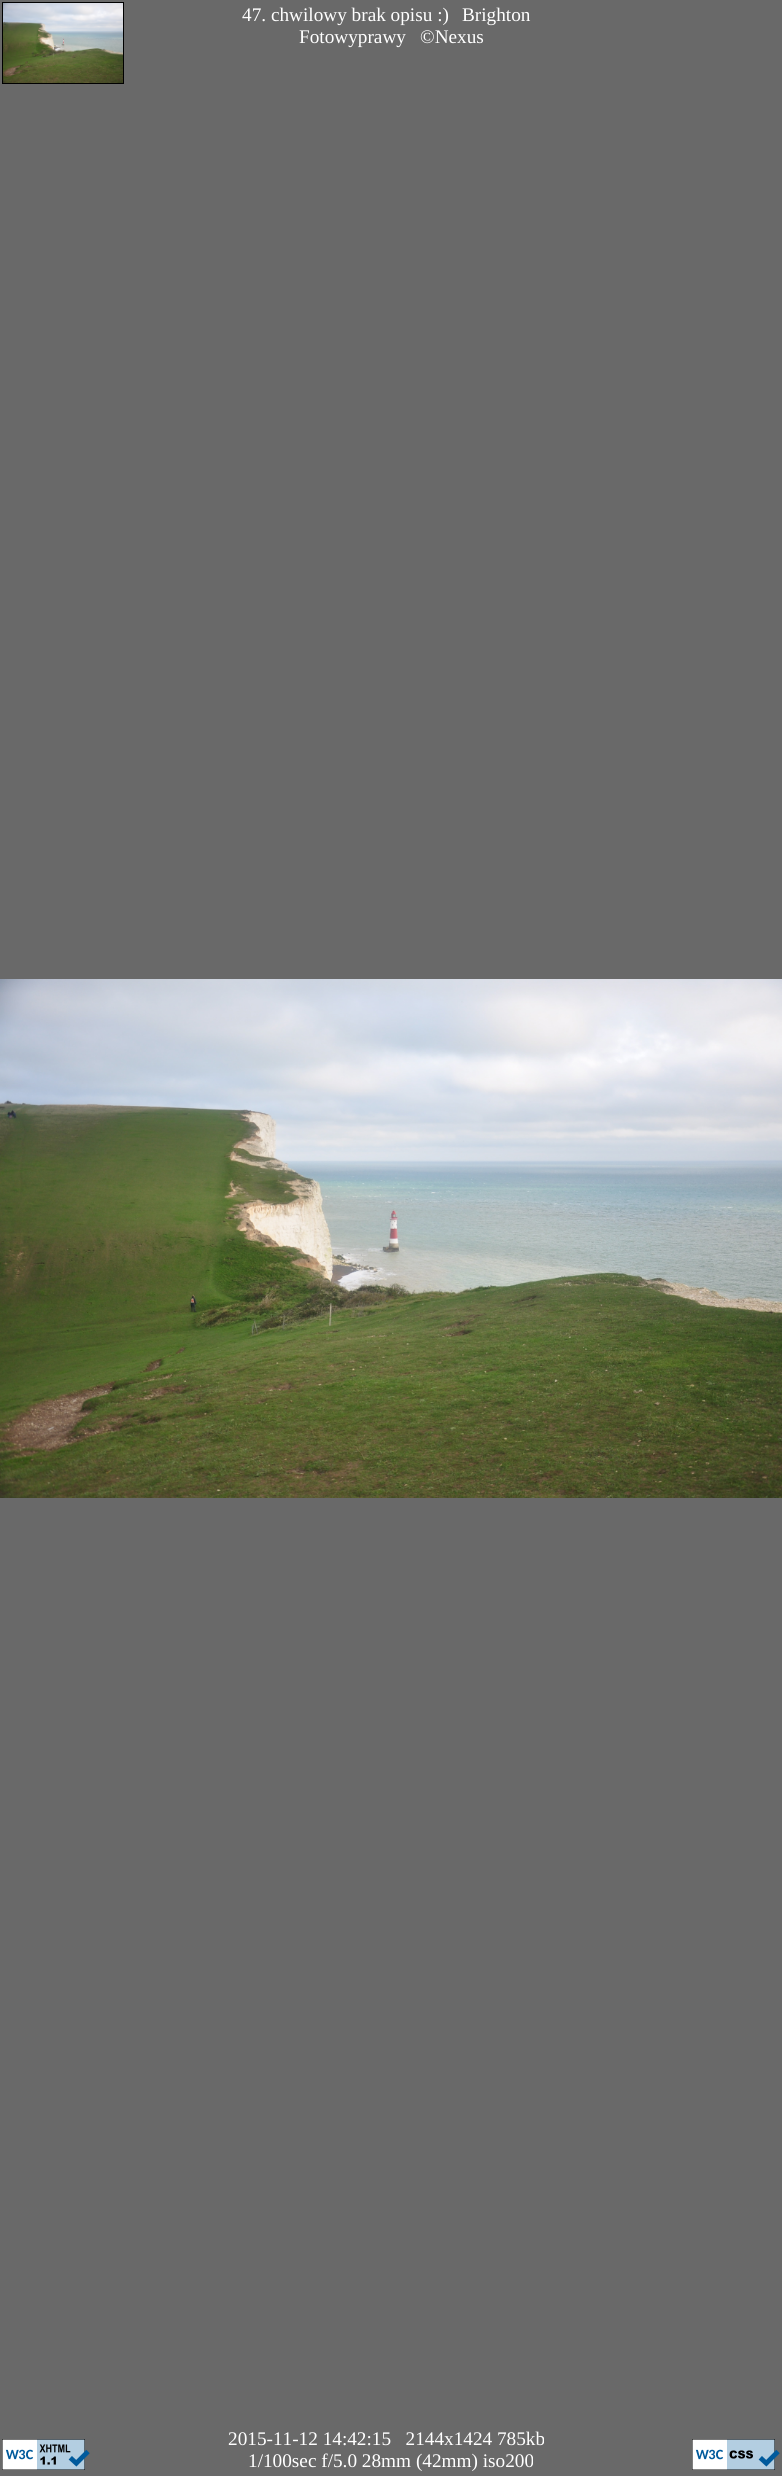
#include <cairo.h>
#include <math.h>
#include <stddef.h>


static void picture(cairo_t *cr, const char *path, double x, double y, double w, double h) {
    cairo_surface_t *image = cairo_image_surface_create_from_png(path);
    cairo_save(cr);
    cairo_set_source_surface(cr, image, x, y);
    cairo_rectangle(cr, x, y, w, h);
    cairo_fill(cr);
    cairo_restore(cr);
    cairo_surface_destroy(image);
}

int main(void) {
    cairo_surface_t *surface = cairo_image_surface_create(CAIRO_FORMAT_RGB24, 782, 2476);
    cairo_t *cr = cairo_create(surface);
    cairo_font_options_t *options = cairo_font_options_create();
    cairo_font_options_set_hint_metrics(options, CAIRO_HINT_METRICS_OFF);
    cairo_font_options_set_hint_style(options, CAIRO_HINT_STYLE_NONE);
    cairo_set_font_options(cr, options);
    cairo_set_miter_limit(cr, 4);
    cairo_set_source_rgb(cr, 0.412, 0.412, 0.412);
    cairo_paint(cr);
    picture(cr, "img1.png", 0, 979, 782, 519);
    cairo_rectangle(cr, 2.5, 2.5, 121, 81);
    cairo_set_source_rgb(cr, 0, 0, 0);
    cairo_set_line_width(cr, 1);
    cairo_stroke(cr);
    picture(cr, "img2.png", 3, 3, 120, 80);
    cairo_select_font_face(cr, "Liberation Serif", CAIRO_FONT_SLANT_NORMAL, CAIRO_FONT_WEIGHT_NORMAL);
    cairo_set_font_size(cr, 19.25);
    cairo_set_source_rgb(cr, 1, 1, 1);
    cairo_move_to(cr, 242, 21);
    cairo_show_text(cr, "47. chwilowy brak opisu :)");
    cairo_move_to(cr, 462, 21);
    cairo_show_text(cr, "Brighton");
    cairo_move_to(cr, 299, 43);
    cairo_show_text(cr, "Fotowyprawy");
    cairo_move_to(cr, 420, 43);
    cairo_show_text(cr, "©Nexus");
    picture(cr, "img3.png", 2, 2439, 88, 31);
    cairo_move_to(cr, 228, 2445);
    cairo_show_text(cr, "2015-11-12 14:42:15   2144x1424 785kb");
    cairo_move_to(cr, 248, 2467);
    cairo_show_text(cr, "1/100sec f/5.0 28mm (42mm) iso200");
    picture(cr, "img4.png", 692, 2439, 88, 31);
    cairo_surface_write_to_png(surface, "page.png");
    cairo_font_options_destroy(options);
    cairo_destroy(cr);
    cairo_surface_destroy(surface);
    return 0;
}
